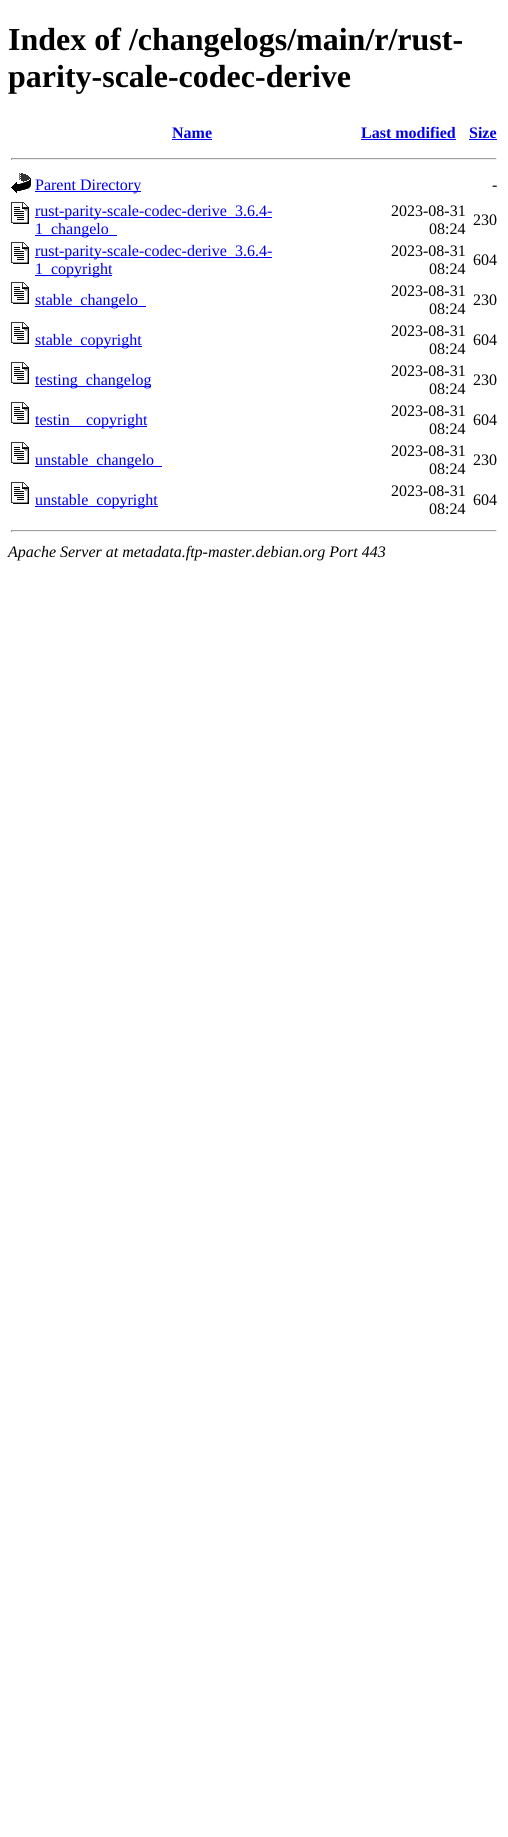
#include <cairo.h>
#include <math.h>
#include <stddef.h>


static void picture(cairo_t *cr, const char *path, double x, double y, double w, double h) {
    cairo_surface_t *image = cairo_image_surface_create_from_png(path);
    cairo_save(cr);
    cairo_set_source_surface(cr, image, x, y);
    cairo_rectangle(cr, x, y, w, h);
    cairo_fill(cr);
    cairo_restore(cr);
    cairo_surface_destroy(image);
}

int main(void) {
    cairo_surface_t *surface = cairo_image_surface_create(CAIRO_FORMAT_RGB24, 508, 1837);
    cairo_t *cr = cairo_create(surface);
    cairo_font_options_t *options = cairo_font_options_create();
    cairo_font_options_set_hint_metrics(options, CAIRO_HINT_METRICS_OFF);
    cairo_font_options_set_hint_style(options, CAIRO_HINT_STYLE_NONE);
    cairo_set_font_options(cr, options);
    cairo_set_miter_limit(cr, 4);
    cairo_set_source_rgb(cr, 1, 1, 1);
    cairo_paint(cr);
    cairo_select_font_face(cr, "Liberation Serif", CAIRO_FONT_SLANT_NORMAL, CAIRO_FONT_WEIGHT_BOLD);
    cairo_set_font_size(cr, 32);
    cairo_set_source_rgb(cr, 0, 0, 0);
    cairo_move_to(cr, 8, 50);
    cairo_show_text(cr, "Index of /changelogs/main/r/rust-");
    cairo_move_to(cr, 8, 87);
    cairo_show_text(cr, "parity-scale-codec-derive");
    cairo_set_font_size(cr, 16);
    cairo_set_source_rgb(cr, 0, 0, 0.933);
    cairo_move_to(cr, 172, 138);
    cairo_show_text(cr, "Name");
    cairo_rectangle(cr, 172, 139, 40, 1);
    cairo_fill(cr);
    cairo_move_to(cr, 361, 138);
    cairo_show_text(cr, "Last modified");
    cairo_rectangle(cr, 361, 139, 95, 1);
    cairo_fill(cr);
    cairo_move_to(cr, 469, 138);
    cairo_show_text(cr, "Size");
    cairo_rectangle(cr, 469, 139, 28, 1);
    cairo_fill(cr);
    cairo_set_source_rgb(cr, 0.624, 0.624, 0.624);
    cairo_rectangle(cr, 11, 158, 486, 1);
    cairo_fill(cr);
    cairo_set_source_rgb(cr, 0.933, 0.933, 0.933);
    cairo_rectangle(cr, 496, 158, 1, 2);
    cairo_fill(cr);
    cairo_rectangle(cr, 11, 159, 486, 1);
    cairo_fill(cr);
    cairo_set_source_rgb(cr, 0.624, 0.624, 0.624);
    cairo_rectangle(cr, 11, 158, 1, 2);
    cairo_fill(cr);
    picture(cr, "img1.png", 11, 173, 20, 20);
    cairo_set_source_rgb(cr, 0, 0, 0.933);
    cairo_rectangle(cr, 35, 191, 106, 1);
    cairo_fill(cr);
    cairo_select_font_face(cr, "Liberation Serif", CAIRO_FONT_SLANT_NORMAL, CAIRO_FONT_WEIGHT_NORMAL);
    cairo_move_to(cr, 35, 190);
    cairo_show_text(cr, "Parent Directory");
    cairo_set_source_rgb(cr, 0, 0, 0);
    cairo_move_to(cr, 492, 190);
    cairo_show_text(cr, "-");
    picture(cr, "img2.png", 11, 202, 18, 22);
    cairo_set_source_rgb(cr, 0, 0, 0.933);
    cairo_rectangle(cr, 35, 217, 237, 1);
    cairo_fill(cr);
    cairo_move_to(cr, 35, 216);
    cairo_show_text(cr, "rust-parity-scale-codec-derive_3.6.4-");
    cairo_rectangle(cr, 35, 235, 82, 1);
    cairo_fill(cr);
    cairo_move_to(cr, 35, 234);
    cairo_show_text(cr, "1_changelo");
    cairo_set_source_rgb(cr, 0, 0, 0);
    cairo_move_to(cr, 391, 216);
    cairo_show_text(cr, "2023-08-31");
    cairo_move_to(cr, 429, 234);
    cairo_show_text(cr, "08:24");
    cairo_move_to(cr, 473, 225);
    cairo_show_text(cr, "230");
    picture(cr, "img2.png", 11, 242, 18, 22);
    cairo_set_source_rgb(cr, 0, 0, 0.933);
    cairo_rectangle(cr, 35, 257, 237, 1);
    cairo_fill(cr);
    cairo_move_to(cr, 35, 256);
    cairo_show_text(cr, "rust-parity-scale-codec-derive_3.6.4-");
    cairo_rectangle(cr, 35, 275, 77, 1);
    cairo_fill(cr);
    cairo_move_to(cr, 35, 274);
    cairo_show_text(cr, "1_copyright");
    cairo_set_source_rgb(cr, 0, 0, 0);
    cairo_move_to(cr, 391, 256);
    cairo_show_text(cr, "2023-08-31");
    cairo_move_to(cr, 429, 274);
    cairo_show_text(cr, "08:24");
    cairo_move_to(cr, 473, 265);
    cairo_show_text(cr, "604");
    picture(cr, "img2.png", 11, 282, 18, 22);
    cairo_set_source_rgb(cr, 0, 0, 0.933);
    cairo_rectangle(cr, 35, 306, 111, 1);
    cairo_fill(cr);
    cairo_move_to(cr, 35, 305);
    cairo_show_text(cr, "stable_changelo");
    cairo_set_source_rgb(cr, 0, 0, 0);
    cairo_move_to(cr, 391, 296);
    cairo_show_text(cr, "2023-08-31");
    cairo_move_to(cr, 429, 314);
    cairo_show_text(cr, "08:24");
    cairo_move_to(cr, 473, 305);
    cairo_show_text(cr, "230");
    picture(cr, "img2.png", 11, 322, 18, 22);
    cairo_set_source_rgb(cr, 0, 0, 0.933);
    cairo_rectangle(cr, 35, 346, 107, 1);
    cairo_fill(cr);
    cairo_move_to(cr, 35, 345);
    cairo_show_text(cr, "stable_copyright");
    cairo_set_source_rgb(cr, 0, 0, 0);
    cairo_move_to(cr, 391, 336);
    cairo_show_text(cr, "2023-08-31");
    cairo_move_to(cr, 429, 354);
    cairo_show_text(cr, "08:24");
    cairo_move_to(cr, 473, 345);
    cairo_show_text(cr, "604");
    picture(cr, "img2.png", 11, 362, 18, 22);
    cairo_set_source_rgb(cr, 0, 0, 0.933);
    cairo_rectangle(cr, 35, 386, 116, 1);
    cairo_fill(cr);
    cairo_move_to(cr, 35, 385);
    cairo_show_text(cr, "testing_changelog");
    cairo_set_source_rgb(cr, 0, 0, 0);
    cairo_move_to(cr, 391, 376);
    cairo_show_text(cr, "2023-08-31");
    cairo_move_to(cr, 429, 394);
    cairo_show_text(cr, "08:24");
    cairo_move_to(cr, 473, 385);
    cairo_show_text(cr, "230");
    picture(cr, "img2.png", 11, 402, 18, 22);
    cairo_set_source_rgb(cr, 0, 0, 0.933);
    cairo_move_to(cr, 35, 425);
    cairo_show_text(cr, "testin");
    cairo_rectangle(cr, 35, 426, 112, 1);
    cairo_fill(cr);
    cairo_move_to(cr, 86, 425);
    cairo_show_text(cr, "copyright");
    cairo_set_source_rgb(cr, 0, 0, 0);
    cairo_move_to(cr, 391, 416);
    cairo_show_text(cr, "2023-08-31");
    cairo_move_to(cr, 429, 434);
    cairo_show_text(cr, "08:24");
    cairo_move_to(cr, 473, 425);
    cairo_show_text(cr, "604");
    picture(cr, "img2.png", 11, 442, 18, 22);
    cairo_set_source_rgb(cr, 0, 0, 0.933);
    cairo_rectangle(cr, 35, 466, 127, 1);
    cairo_fill(cr);
    cairo_move_to(cr, 35, 465);
    cairo_show_text(cr, "unstable_changelo");
    cairo_set_source_rgb(cr, 0, 0, 0);
    cairo_move_to(cr, 391, 456);
    cairo_show_text(cr, "2023-08-31");
    cairo_move_to(cr, 429, 474);
    cairo_show_text(cr, "08:24");
    cairo_move_to(cr, 473, 465);
    cairo_show_text(cr, "230");
    picture(cr, "img2.png", 11, 482, 18, 22);
    cairo_set_source_rgb(cr, 0, 0, 0.933);
    cairo_rectangle(cr, 35, 506, 123, 1);
    cairo_fill(cr);
    cairo_move_to(cr, 35, 505);
    cairo_show_text(cr, "unstable_copyright");
    cairo_set_source_rgb(cr, 0, 0, 0);
    cairo_move_to(cr, 391, 496);
    cairo_show_text(cr, "2023-08-31");
    cairo_move_to(cr, 429, 514);
    cairo_show_text(cr, "08:24");
    cairo_move_to(cr, 473, 505);
    cairo_show_text(cr, "604");
    cairo_set_source_rgb(cr, 0.624, 0.624, 0.624);
    cairo_rectangle(cr, 11, 530, 486, 1);
    cairo_fill(cr);
    cairo_set_source_rgb(cr, 0.933, 0.933, 0.933);
    cairo_rectangle(cr, 496, 530, 1, 2);
    cairo_fill(cr);
    cairo_rectangle(cr, 11, 531, 486, 1);
    cairo_fill(cr);
    cairo_set_source_rgb(cr, 0.624, 0.624, 0.624);
    cairo_rectangle(cr, 11, 530, 1, 2);
    cairo_fill(cr);
    cairo_select_font_face(cr, "Liberation Serif", CAIRO_FONT_SLANT_ITALIC, CAIRO_FONT_WEIGHT_NORMAL);
    cairo_set_source_rgb(cr, 0, 0, 0);
    cairo_move_to(cr, 8, 557);
    cairo_show_text(cr, "Apache Server at metadata.ftp-master.debian.org Port 443");
    cairo_surface_write_to_png(surface, "page.png");
    cairo_font_options_destroy(options);
    cairo_destroy(cr);
    cairo_surface_destroy(surface);
    return 0;
}
